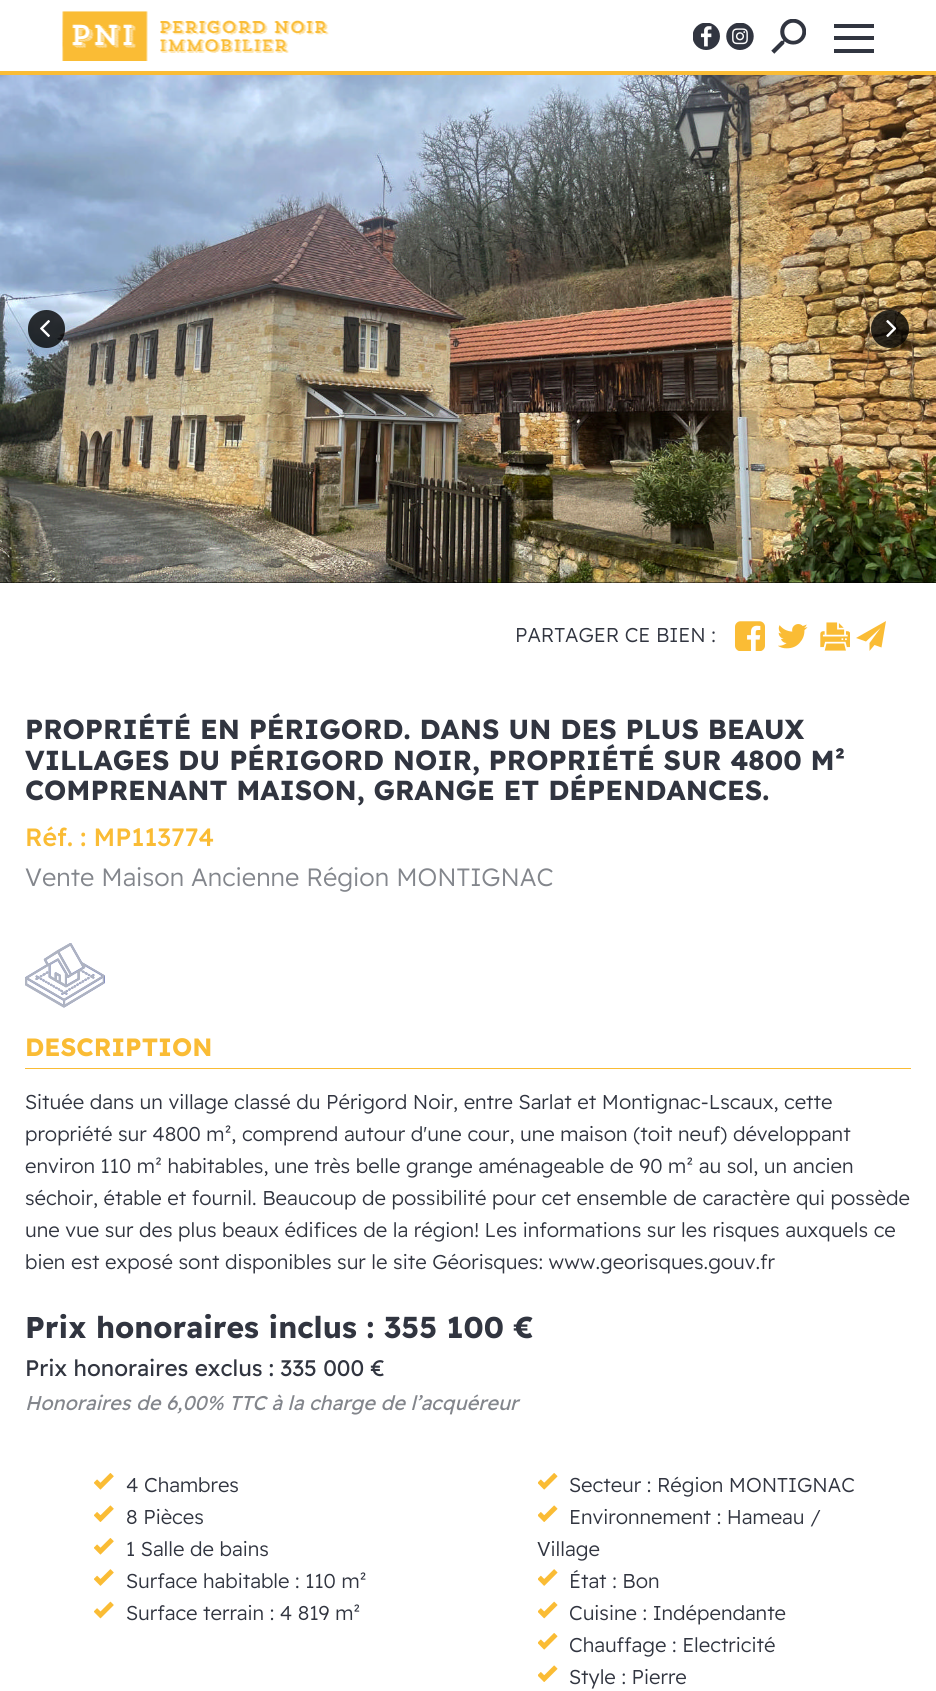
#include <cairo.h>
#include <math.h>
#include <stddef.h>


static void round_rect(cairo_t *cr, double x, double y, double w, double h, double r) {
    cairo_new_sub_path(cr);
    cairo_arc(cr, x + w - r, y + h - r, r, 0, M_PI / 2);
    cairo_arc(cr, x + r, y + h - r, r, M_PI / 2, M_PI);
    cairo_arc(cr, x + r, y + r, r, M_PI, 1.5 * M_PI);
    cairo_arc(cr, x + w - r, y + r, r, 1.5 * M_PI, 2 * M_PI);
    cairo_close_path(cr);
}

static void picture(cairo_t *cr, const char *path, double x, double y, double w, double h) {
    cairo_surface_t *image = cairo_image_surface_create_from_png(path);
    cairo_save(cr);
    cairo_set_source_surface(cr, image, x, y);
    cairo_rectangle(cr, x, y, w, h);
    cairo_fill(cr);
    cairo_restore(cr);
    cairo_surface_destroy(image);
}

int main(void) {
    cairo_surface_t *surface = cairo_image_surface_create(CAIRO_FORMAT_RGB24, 936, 1691);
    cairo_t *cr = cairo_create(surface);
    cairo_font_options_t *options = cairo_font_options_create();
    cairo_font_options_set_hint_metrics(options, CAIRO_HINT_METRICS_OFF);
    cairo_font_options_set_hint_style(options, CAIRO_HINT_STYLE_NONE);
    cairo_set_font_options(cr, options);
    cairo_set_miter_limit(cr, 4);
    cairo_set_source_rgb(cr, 1, 1, 1);
    cairo_paint(cr);
    cairo_set_source_rgb(cr, 0.98, 0.737, 0.208);
    cairo_rectangle(cr, 0, 71, 936, 4);
    cairo_fill(cr);
    picture(cr, "img1.png", 62, 11, 267, 50);
    picture(cr, "img2.png", 693, 23, 27, 27);
    picture(cr, "img3.png", 726, 23, 28, 27);
    picture(cr, "img4.png", 771, 19, 35, 35);
    cairo_set_source_rgb(cr, 0.192, 0.208, 0.251);
    cairo_rectangle(cr, 834, 36, 40, 4);
    cairo_fill(cr);
    cairo_rectangle(cr, 834, 24, 40, 4);
    cairo_fill(cr);
    cairo_rectangle(cr, 834, 49, 40, 4);
    cairo_fill(cr);
    cairo_set_source_rgb(cr, 0, 0, 0);
    cairo_rectangle(cr, 0, 582, 936, 1);
    cairo_fill(cr);
    picture(cr, "img5.png", 0, 75, 936, 508);
    cairo_set_source_rgba(cr, 0, 0, 0, 0.8);
    round_rect(cr, 28, 310, 37, 38, 18.5);
    cairo_fill(cr);
    picture(cr, "img6.png", 40, 320, 10, 17);
    cairo_arc(cr, 890, 329, 19, 0, 2 * M_PI);
    cairo_fill(cr);
    picture(cr, "img7.png", 886, 320, 10, 17);
    cairo_select_font_face(cr, "Readex Pro Light", CAIRO_FONT_SLANT_NORMAL, CAIRO_FONT_WEIGHT_NORMAL);
    cairo_set_font_size(cr, 20);
    cairo_set_source_rgb(cr, 0.192, 0.208, 0.251);
    cairo_move_to(cr, 515, 642);
    cairo_show_text(cr, "PARTAGER CE BIEN :");
    picture(cr, "img8.png", 735, 621, 30, 30);
    picture(cr, "img9.png", 778, 624, 30, 25);
    picture(cr, "img10.png", 820, 622, 30, 29);
    cairo_set_source_rgb(cr, 0.98, 0.737, 0.208);
    cairo_new_path(cr);
    cairo_move_to(cr, 886, 621);
    cairo_line_to(cr, 856, 638);
    cairo_line_to(cr, 866, 641.5);
    cairo_line_to(cr, 880.5, 628);
    cairo_line_to(cr, 869.5, 643);
    cairo_line_to(cr, 869.5, 651);
    cairo_line_to(cr, 874.5, 645);
    cairo_line_to(cr, 881.5, 647.5);
    cairo_close_path(cr);
    cairo_fill(cr);
    cairo_select_font_face(cr, "Readex Pro", CAIRO_FONT_SLANT_NORMAL, CAIRO_FONT_WEIGHT_BOLD);
    cairo_set_font_size(cr, 27.5);
    cairo_set_source_rgb(cr, 0.192, 0.208, 0.251);
    cairo_move_to(cr, 25, 739);
    cairo_show_text(cr, "PROPRIÉTÉ EN PÉRIGORD. DANS UN DES PLUS BEAUX");
    cairo_move_to(cr, 25, 770);
    cairo_show_text(cr, "VILLAGES DU PÉRIGORD NOIR, PROPRIÉTÉ SUR 4800 M²");
    cairo_move_to(cr, 25, 800);
    cairo_show_text(cr, "COMPRENANT MAISON, GRANGE ET DÉPENDANCES.");
    cairo_select_font_face(cr, "Readex Pro Medium", CAIRO_FONT_SLANT_NORMAL, CAIRO_FONT_WEIGHT_NORMAL);
    cairo_set_font_size(cr, 25);
    cairo_set_source_rgb(cr, 0.98, 0.737, 0.208);
    cairo_move_to(cr, 25, 846);
    cairo_show_text(cr, "Réf. : MP113774");
    cairo_select_font_face(cr, "Readex Pro Light", CAIRO_FONT_SLANT_NORMAL, CAIRO_FONT_WEIGHT_NORMAL);
    cairo_set_source_rgb(cr, 0.514, 0.525, 0.549);
    cairo_move_to(cr, 25, 886);
    cairo_show_text(cr, "Vente Maison Ancienne Région MONTIGNAC");
    picture(cr, "img11.png", 25, 943, 80, 65);
    picture(cr, "img12.png", 25, 943, 80, 65);
    cairo_set_source_rgb(cr, 0.98, 0.737, 0.208);
    cairo_rectangle(cr, 25, 1068, 886, 1);
    cairo_fill(cr);
    cairo_select_font_face(cr, "Readex Pro", CAIRO_FONT_SLANT_NORMAL, CAIRO_FONT_WEIGHT_BOLD);
    cairo_move_to(cr, 25, 1056);
    cairo_show_text(cr, "DESCRIPTION");
    cairo_select_font_face(cr, "Readex Pro Light", CAIRO_FONT_SLANT_NORMAL, CAIRO_FONT_WEIGHT_NORMAL);
    cairo_set_font_size(cr, 20);
    cairo_set_source_rgb(cr, 0.192, 0.208, 0.251);
    cairo_move_to(cr, 25, 1109);
    cairo_show_text(cr, "Située dans un village classé du Périgord Noir, entre Sarlat et Montignac-Lscaux, cette");
    cairo_move_to(cr, 25, 1141);
    cairo_show_text(cr, "propriété sur 4800 m², comprend autour d'une cour, une maison (toit neuf) développant");
    cairo_move_to(cr, 25, 1173);
    cairo_show_text(cr, "environ 110 m² habitables, une très belle grange aménageable de 90 m² au sol, un ancien");
    cairo_move_to(cr, 25, 1205);
    cairo_show_text(cr, "séchoir, étable et fournil. Beaucoup de possibilité pour cet ensemble de caractère qui possède");
    cairo_move_to(cr, 25, 1237);
    cairo_show_text(cr, "une vue sur des plus beaux édifices de la région! Les informations sur les risques auxquels ce");
    cairo_move_to(cr, 25, 1269);
    cairo_show_text(cr, "bien est exposé sont disponibles sur le site Géorisques: www.georisques.gouv.fr");
    cairo_select_font_face(cr, "Readex Pro", CAIRO_FONT_SLANT_NORMAL, CAIRO_FONT_WEIGHT_BOLD);
    cairo_set_font_size(cr, 30);
    cairo_move_to(cr, 25, 1338);
    cairo_show_text(cr, "Prix honoraires inclus : 355 100 €");
    cairo_select_font_face(cr, "Readex Pro", CAIRO_FONT_SLANT_NORMAL, CAIRO_FONT_WEIGHT_NORMAL);
    cairo_set_font_size(cr, 22.5);
    cairo_move_to(cr, 25, 1376);
    cairo_show_text(cr, "Prix honoraires exclus : 335 000 €");
    cairo_select_font_face(cr, "Readex Pro", CAIRO_FONT_SLANT_ITALIC, CAIRO_FONT_WEIGHT_NORMAL);
    cairo_set_font_size(cr, 20);
    cairo_set_source_rgb(cr, 0.514, 0.525, 0.549);
    cairo_move_to(cr, 25, 1410);
    cairo_show_text(cr, "Honoraires de 6,00% TTC à la charge de l’acquéreur");
    picture(cr, "img13.png", 94, 1473, 20, 17);
    cairo_select_font_face(cr, "Readex Pro Light", CAIRO_FONT_SLANT_NORMAL, CAIRO_FONT_WEIGHT_NORMAL);
    cairo_set_source_rgb(cr, 0.192, 0.208, 0.251);
    cairo_move_to(cr, 126, 1492);
    cairo_show_text(cr, "4 Chambres");
    picture(cr, "img14.png", 94, 1505, 20, 17);
    cairo_move_to(cr, 126, 1524);
    cairo_show_text(cr, "8 Pièces");
    picture(cr, "img13.png", 94, 1538, 20, 17);
    cairo_move_to(cr, 126, 1556);
    cairo_show_text(cr, "1 Salle de bains");
    picture(cr, "img15.png", 94, 1569, 20, 17);
    cairo_move_to(cr, 126, 1588);
    cairo_show_text(cr, "Surface habitable : 110 m²");
    picture(cr, "img16.png", 94, 1601, 20, 18);
    cairo_move_to(cr, 126, 1620);
    cairo_show_text(cr, "Surface terrain : 4 819 m²");
    picture(cr, "img17.png", 538, 1473, 20, 17);
    cairo_move_to(cr, 569, 1492);
    cairo_show_text(cr, "Secteur : Région MONTIGNAC");
    picture(cr, "img18.png", 538, 1505, 20, 17);
    cairo_move_to(cr, 569, 1524);
    cairo_show_text(cr, "Environnement : Hameau /");
    cairo_move_to(cr, 537, 1556);
    cairo_show_text(cr, "Village");
    picture(cr, "img19.png", 538, 1569, 20, 17);
    cairo_move_to(cr, 569, 1588);
    cairo_show_text(cr, "État : Bon");
    picture(cr, "img20.png", 538, 1601, 20, 18);
    cairo_move_to(cr, 569, 1620);
    cairo_show_text(cr, "Cuisine : Indépendante");
    picture(cr, "img17.png", 538, 1633, 20, 17);
    cairo_move_to(cr, 569, 1652);
    cairo_show_text(cr, "Chauffage : Electricité");
    picture(cr, "img18.png", 538, 1665, 20, 17);
    cairo_move_to(cr, 569, 1684);
    cairo_show_text(cr, "Style : Pierre");
    cairo_surface_write_to_png(surface, "page.png");
    cairo_font_options_destroy(options);
    cairo_destroy(cr);
    cairo_surface_destroy(surface);
    return 0;
}
